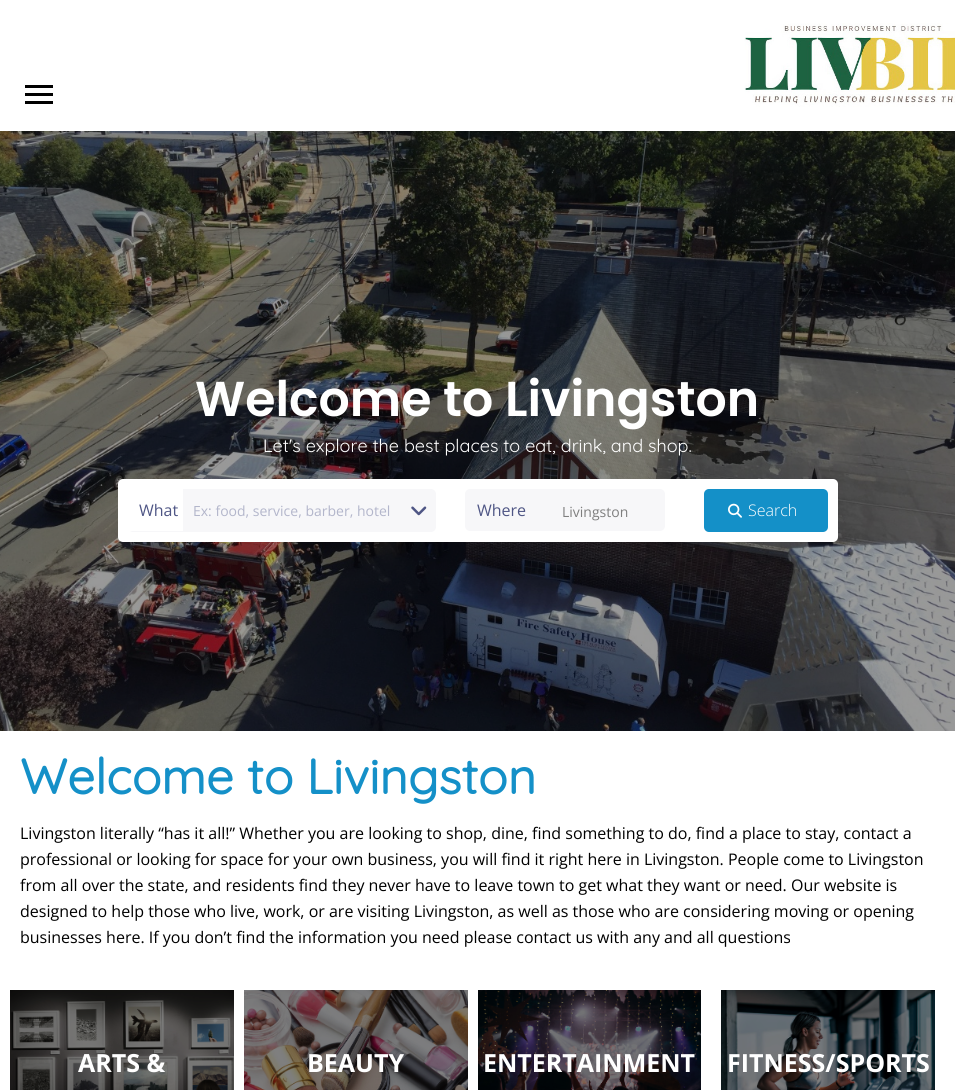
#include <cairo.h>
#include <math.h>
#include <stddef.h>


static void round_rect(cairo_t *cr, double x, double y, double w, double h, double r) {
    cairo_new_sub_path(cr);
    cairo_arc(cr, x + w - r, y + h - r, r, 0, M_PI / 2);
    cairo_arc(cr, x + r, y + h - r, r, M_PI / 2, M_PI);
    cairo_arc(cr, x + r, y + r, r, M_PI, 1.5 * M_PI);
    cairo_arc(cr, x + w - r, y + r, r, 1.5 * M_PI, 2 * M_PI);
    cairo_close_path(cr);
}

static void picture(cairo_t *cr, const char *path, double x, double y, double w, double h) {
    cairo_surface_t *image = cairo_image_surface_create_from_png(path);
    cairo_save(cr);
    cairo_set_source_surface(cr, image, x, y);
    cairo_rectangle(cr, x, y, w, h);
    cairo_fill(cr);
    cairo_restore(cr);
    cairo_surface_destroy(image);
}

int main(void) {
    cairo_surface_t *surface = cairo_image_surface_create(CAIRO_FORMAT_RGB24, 955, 1090);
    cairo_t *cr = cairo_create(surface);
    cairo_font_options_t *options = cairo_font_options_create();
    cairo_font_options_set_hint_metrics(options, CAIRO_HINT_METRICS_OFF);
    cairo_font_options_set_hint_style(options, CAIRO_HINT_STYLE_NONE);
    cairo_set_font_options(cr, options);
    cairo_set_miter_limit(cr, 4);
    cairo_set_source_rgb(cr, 1, 1, 1);
    cairo_paint(cr);
    picture(cr, "img1.png", 0, 131, 955, 600);
    cairo_set_source_rgb(cr, 0, 0, 0);
    cairo_rectangle(cr, 25, 85, 28, 3);
    cairo_fill(cr);
    cairo_rectangle(cr, 25, 93, 28, 3);
    cairo_fill(cr);
    cairo_rectangle(cr, 25, 101, 28, 3);
    cairo_fill(cr);
    picture(cr, "img2.png", 744, 23, 211, 84);
    cairo_set_source_rgba(cr, 0, 0, 0, 0.4);
    cairo_rectangle(cr, 0, 131, 955, 600);
    cairo_fill(cr);
    cairo_select_font_face(cr, "Poppins SemiBold", CAIRO_FONT_SLANT_NORMAL, CAIRO_FONT_WEIGHT_NORMAL);
    cairo_set_font_size(cr, 49);
    cairo_set_source_rgb(cr, 1, 1, 1);
    cairo_move_to(cr, 195, 416);
    cairo_show_text(cr, "Welcome to Livingston");
    cairo_select_font_face(cr, "Quicksand Light", CAIRO_FONT_SLANT_NORMAL, CAIRO_FONT_WEIGHT_NORMAL);
    cairo_set_font_size(cr, 18);
    cairo_move_to(cr, 263, 452);
    cairo_show_text(cr, "Let's explore the best places to eat, drink, and shop.");
    round_rect(cr, 118, 479, 720, 63, 5);
    cairo_fill(cr);
    cairo_set_source_rgb(cr, 0.965, 0.965, 0.976);
    round_rect(cr, 128, 489, 308, 43, 5);
    cairo_fill(cr);
    cairo_set_source_rgb(cr, 1, 1, 1);
    cairo_rectangle(cr, 128, 489, 55, 42);
    cairo_fill(cr);
    cairo_select_font_face(cr, "Open Sans", CAIRO_FONT_SLANT_NORMAL, CAIRO_FONT_WEIGHT_NORMAL);
    cairo_set_font_size(cr, 16);
    cairo_set_source_rgb(cr, 0.31, 0.337, 0.522);
    cairo_move_to(cr, 139, 516);
    cairo_show_text(cr, "What");
    cairo_set_font_size(cr, 14);
    cairo_set_source_rgb(cr, 0.702, 0.714, 0.796);
    cairo_move_to(cr, 193, 516);
    cairo_show_text(cr, "Ex: food, service, barber, hotel");
    picture(cr, "img3.png", 411, 506, 16, 10);
    cairo_set_source_rgb(cr, 0.965, 0.965, 0.976);
    round_rect(cr, 465, 489, 200, 42, 5);
    cairo_fill(cr);
    cairo_set_font_size(cr, 16);
    cairo_set_source_rgb(cr, 0.31, 0.337, 0.522);
    cairo_move_to(cr, 477, 516);
    cairo_show_text(cr, "Where");
    cairo_set_font_size(cr, 14);
    cairo_set_source_rgb(cr, 0.498, 0.498, 0.498);
    cairo_move_to(cr, 562, 517);
    cairo_show_text(cr, "Livingston");
    cairo_set_source_rgb(cr, 0.082, 0.565, 0.784);
    round_rect(cr, 704, 489, 124, 43, 5);
    cairo_fill(cr);
    picture(cr, "img4.png", 728, 503, 14, 15);
    cairo_select_font_face(cr, "Open Sans Light", CAIRO_FONT_SLANT_NORMAL, CAIRO_FONT_WEIGHT_NORMAL);
    cairo_set_font_size(cr, 16);
    cairo_set_source_rgb(cr, 1, 1, 1);
    cairo_move_to(cr, 748, 516);
    cairo_show_text(cr, "Search");
    cairo_select_font_face(cr, "Quicksand", CAIRO_FONT_SLANT_NORMAL, CAIRO_FONT_WEIGHT_BOLD);
    cairo_set_font_size(cr, 49);
    cairo_set_source_rgb(cr, 0.082, 0.565, 0.784);
    cairo_move_to(cr, 20, 794);
    cairo_show_text(cr, "Welcome to Livingston");
    cairo_select_font_face(cr, "Open Sans", CAIRO_FONT_SLANT_NORMAL, CAIRO_FONT_WEIGHT_NORMAL);
    cairo_set_font_size(cr, 16);
    cairo_set_source_rgb(cr, 0, 0, 0);
    cairo_move_to(cr, 20, 839);
    cairo_show_text(cr, "Livingston literally “has it all!” Whether you are looking to shop, dine, find something to do, find a place to stay, contact a");
    cairo_move_to(cr, 20, 865);
    cairo_show_text(cr, "professional or looking for space for your own business, you will find it right here in Livingston. People come to Livingston");
    cairo_move_to(cr, 20, 891);
    cairo_show_text(cr, "from all over the state, and residents find they never have to leave town to get what they want or need. Our website is");
    cairo_move_to(cr, 20, 917);
    cairo_show_text(cr, "designed to help those who live, work, or are visiting Livingston, as well as those who are considering moving or opening");
    cairo_move_to(cr, 20, 943);
    cairo_show_text(cr, "businesses here. If you don’t find the information you need please contact us with any and all questions");
    picture(cr, "img5.png", 10, 990, 224, 100);
    cairo_select_font_face(cr, "Open Sans", CAIRO_FONT_SLANT_NORMAL, CAIRO_FONT_WEIGHT_BOLD);
    cairo_set_font_size(cr, 25);
    cairo_set_source_rgb(cr, 1, 1, 1);
    cairo_move_to(cr, 78, 1072);
    cairo_show_text(cr, "ARTS &");
    picture(cr, "img6.png", 244, 990, 224, 100);
    cairo_move_to(cr, 307, 1072);
    cairo_show_text(cr, "BEAUTY");
    picture(cr, "img7.png", 478, 990, 223, 100);
    cairo_move_to(cr, 483, 1072);
    cairo_show_text(cr, "ENTERTAINMENT");
    picture(cr, "img8.png", 721, 990, 214, 100);
    cairo_move_to(cr, 727, 1072);
    cairo_show_text(cr, "FITNESS/SPORTS");
    cairo_surface_write_to_png(surface, "page.png");
    cairo_font_options_destroy(options);
    cairo_destroy(cr);
    cairo_surface_destroy(surface);
    return 0;
}
